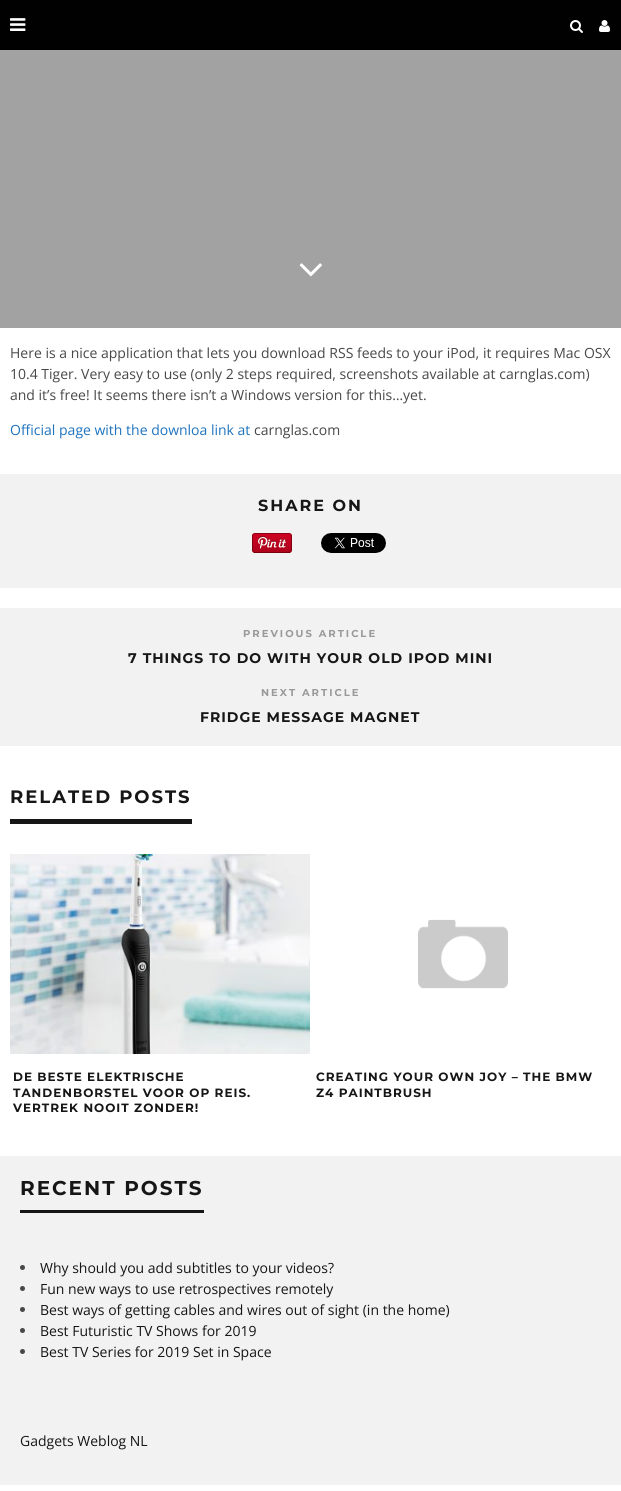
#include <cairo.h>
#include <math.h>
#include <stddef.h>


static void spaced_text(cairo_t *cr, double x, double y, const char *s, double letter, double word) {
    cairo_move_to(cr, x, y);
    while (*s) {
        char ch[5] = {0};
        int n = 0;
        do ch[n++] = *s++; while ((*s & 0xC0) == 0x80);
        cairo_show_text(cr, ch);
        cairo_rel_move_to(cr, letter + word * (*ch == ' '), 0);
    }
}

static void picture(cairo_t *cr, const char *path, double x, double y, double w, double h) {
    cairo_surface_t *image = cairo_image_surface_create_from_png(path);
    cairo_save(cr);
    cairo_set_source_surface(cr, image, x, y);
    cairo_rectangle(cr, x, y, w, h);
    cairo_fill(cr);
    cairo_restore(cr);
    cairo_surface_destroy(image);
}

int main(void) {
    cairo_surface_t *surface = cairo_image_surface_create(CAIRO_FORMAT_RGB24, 621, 1491);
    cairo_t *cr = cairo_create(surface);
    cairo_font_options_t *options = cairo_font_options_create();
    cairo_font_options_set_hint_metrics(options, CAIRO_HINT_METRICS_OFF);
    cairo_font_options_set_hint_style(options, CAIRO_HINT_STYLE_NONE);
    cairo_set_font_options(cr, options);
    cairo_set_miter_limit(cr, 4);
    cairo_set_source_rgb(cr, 1, 1, 1);
    cairo_paint(cr);
    cairo_set_source_rgb(cr, 0.004, 0.004, 0.004);
    cairo_rectangle(cr, 0, 0, 621, 50);
    cairo_fill(cr);
    picture(cr, "img1.png", 10, 18, 16, 13);
    picture(cr, "img2.png", 570, 20, 13, 13);
    picture(cr, "img3.png", 599, 20, 11, 12);
    cairo_set_source_rgb(cr, 0.635, 0.635, 0.635);
    cairo_rectangle(cr, 0, 50, 621, 278);
    cairo_fill(cr);
    picture(cr, "img4.png", 299, 263, 23, 14);
    cairo_select_font_face(cr, "Open Sans", CAIRO_FONT_SLANT_NORMAL, CAIRO_FONT_WEIGHT_NORMAL);
    cairo_set_font_size(cr, 14);
    cairo_set_source_rgb(cr, 0.282, 0.282, 0.282);
    cairo_move_to(cr, 10, 358);
    cairo_show_text(cr, "Here is a nice application that lets you download RSS feeds to your iPod, it requires Mac OSX");
    cairo_move_to(cr, 10, 379);
    cairo_show_text(cr, "10.4 Tiger. Very easy to use (only 2 steps required, screenshots available at carnglas.com)");
    cairo_move_to(cr, 10, 400);
    cairo_show_text(cr, "and it’s free! It seems there isn’t a Windows version for this…yet.");
    cairo_set_source_rgb(cr, 0.118, 0.451, 0.745);
    cairo_move_to(cr, 10, 435);
    cairo_show_text(cr, "Official page with the downloa link at");
    cairo_set_source_rgb(cr, 0.282, 0.282, 0.282);
    cairo_move_to(cr, 254, 435);
    cairo_show_text(cr, "carnglas.com");
    cairo_set_source_rgb(cr, 0.949, 0.949, 0.949);
    cairo_rectangle(cr, 0, 474, 621, 114);
    cairo_fill(cr);
    cairo_select_font_face(cr, "Montserrat", CAIRO_FONT_SLANT_NORMAL, CAIRO_FONT_WEIGHT_BOLD);
    cairo_set_font_size(cr, 16);
    cairo_set_source_rgb(cr, 0.086, 0.086, 0.086);
    spaced_text(cr, 258, 511, "SHARE ON", 2, 0);
    picture(cr, "img5.png", 252, 533, 40, 20);
    picture(cr, "img6.png", 321, 533, 65, 20);
    cairo_set_source_rgb(cr, 0.949, 0.949, 0.949);
    cairo_rectangle(cr, 0, 608, 621, 138);
    cairo_fill(cr);
    cairo_set_font_size(cr, 10);
    cairo_set_source_rgb(cr, 0.6, 0.6, 0.6);
    spaced_text(cr, 243, 637, "PREVIOUS ARTICLE", 2, 0);
    cairo_set_font_size(cr, 14);
    cairo_set_source_rgb(cr, 0.086, 0.086, 0.086);
    spaced_text(cr, 128, 663, "7 THINGS TO DO WITH YOUR OLD IPOD MINI", 1, 0);
    cairo_set_font_size(cr, 10);
    cairo_set_source_rgb(cr, 0.6, 0.6, 0.6);
    spaced_text(cr, 261, 696, "NEXT ARTICLE", 2, 0);
    cairo_set_font_size(cr, 14);
    cairo_set_source_rgb(cr, 0.086, 0.086, 0.086);
    spaced_text(cr, 200, 722, "FRIDGE MESSAGE MAGNET", 1, 0);
    cairo_rectangle(cr, 10, 819, 182, 5);
    cairo_fill(cr);
    cairo_set_font_size(cr, 18);
    spaced_text(cr, 10, 803, "RELATED POSTS", 2, 0);
    picture(cr, "img7.png", 10, 854, 300, 200);
    cairo_set_font_size(cr, 12);
    spaced_text(cr, 13, 1081, "DE BESTE ELEKTRISCHE", 1, 0);
    spaced_text(cr, 13, 1097, "TANDENBORSTEL VOOR OP REIS.", 1, 0);
    spaced_text(cr, 13, 1112, "VERTREK NOOIT ZONDER!", 1, 0);
    picture(cr, "img8.png", 313, 854, 298, 200);
    spaced_text(cr, 316, 1081, "CREATING YOUR OWN JOY – THE BMW", 1, 0);
    spaced_text(cr, 316, 1097, "Z4 PAINTBRUSH", 1, 0);
    cairo_set_source_rgb(cr, 0.949, 0.949, 0.949);
    cairo_rectangle(cr, 0, 1156, 621, 329);
    cairo_fill(cr);
    cairo_set_source_rgb(cr, 0.086, 0.086, 0.086);
    cairo_rectangle(cr, 20, 1210, 184, 3);
    cairo_fill(cr);
    cairo_set_font_size(cr, 20);
    spaced_text(cr, 20, 1195, "RECENT POSTS", 2, 0);
    cairo_set_source_rgb(cr, 0.282, 0.282, 0.282);
    cairo_new_path(cr);
    cairo_arc(cr, 22.5, 1267.5, 2.5, 0, 2 * M_PI);
    cairo_fill(cr);
    cairo_select_font_face(cr, "Open Sans", CAIRO_FONT_SLANT_NORMAL, CAIRO_FONT_WEIGHT_NORMAL);
    cairo_set_font_size(cr, 14);
    cairo_set_source_rgb(cr, 0.086, 0.086, 0.086);
    cairo_move_to(cr, 40, 1273);
    cairo_show_text(cr, "Why should you add subtitles to your videos?");
    cairo_set_source_rgb(cr, 0.282, 0.282, 0.282);
    cairo_new_path(cr);
    cairo_arc(cr, 22.5, 1288.5, 2.5, 0, 2 * M_PI);
    cairo_fill(cr);
    cairo_set_source_rgb(cr, 0.086, 0.086, 0.086);
    cairo_move_to(cr, 40, 1294);
    cairo_show_text(cr, "Fun new ways to use retrospectives remotely");
    cairo_set_source_rgb(cr, 0.282, 0.282, 0.282);
    cairo_new_path(cr);
    cairo_arc(cr, 22.5, 1309.5, 2.5, 0, 2 * M_PI);
    cairo_fill(cr);
    cairo_set_source_rgb(cr, 0.086, 0.086, 0.086);
    cairo_move_to(cr, 40, 1315);
    cairo_show_text(cr, "Best ways of getting cables and wires out of sight (in the home)");
    cairo_set_source_rgb(cr, 0.282, 0.282, 0.282);
    cairo_new_path(cr);
    cairo_arc(cr, 22.5, 1330.5, 2.5, 0, 2 * M_PI);
    cairo_fill(cr);
    cairo_set_source_rgb(cr, 0.086, 0.086, 0.086);
    cairo_move_to(cr, 40, 1336);
    cairo_show_text(cr, "Best Futuristic TV Shows for 2019");
    cairo_set_source_rgb(cr, 0.282, 0.282, 0.282);
    cairo_new_path(cr);
    cairo_arc(cr, 22.5, 1351.5, 2.5, 0, 2 * M_PI);
    cairo_fill(cr);
    cairo_set_source_rgb(cr, 0.086, 0.086, 0.086);
    cairo_move_to(cr, 40, 1357);
    cairo_show_text(cr, "Best TV Series for 2019 Set in Space");
    cairo_move_to(cr, 20, 1446);
    cairo_show_text(cr, "Gadgets Weblog NL");
    cairo_surface_write_to_png(surface, "page.png");
    cairo_font_options_destroy(options);
    cairo_destroy(cr);
    cairo_surface_destroy(surface);
    return 0;
}
